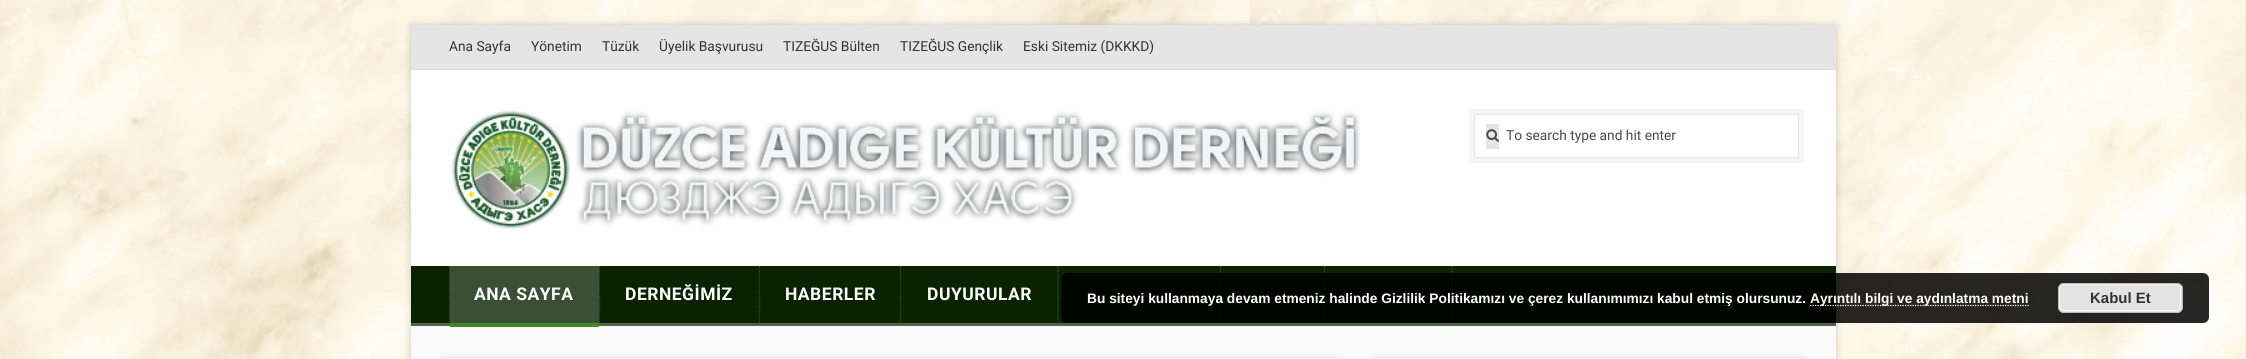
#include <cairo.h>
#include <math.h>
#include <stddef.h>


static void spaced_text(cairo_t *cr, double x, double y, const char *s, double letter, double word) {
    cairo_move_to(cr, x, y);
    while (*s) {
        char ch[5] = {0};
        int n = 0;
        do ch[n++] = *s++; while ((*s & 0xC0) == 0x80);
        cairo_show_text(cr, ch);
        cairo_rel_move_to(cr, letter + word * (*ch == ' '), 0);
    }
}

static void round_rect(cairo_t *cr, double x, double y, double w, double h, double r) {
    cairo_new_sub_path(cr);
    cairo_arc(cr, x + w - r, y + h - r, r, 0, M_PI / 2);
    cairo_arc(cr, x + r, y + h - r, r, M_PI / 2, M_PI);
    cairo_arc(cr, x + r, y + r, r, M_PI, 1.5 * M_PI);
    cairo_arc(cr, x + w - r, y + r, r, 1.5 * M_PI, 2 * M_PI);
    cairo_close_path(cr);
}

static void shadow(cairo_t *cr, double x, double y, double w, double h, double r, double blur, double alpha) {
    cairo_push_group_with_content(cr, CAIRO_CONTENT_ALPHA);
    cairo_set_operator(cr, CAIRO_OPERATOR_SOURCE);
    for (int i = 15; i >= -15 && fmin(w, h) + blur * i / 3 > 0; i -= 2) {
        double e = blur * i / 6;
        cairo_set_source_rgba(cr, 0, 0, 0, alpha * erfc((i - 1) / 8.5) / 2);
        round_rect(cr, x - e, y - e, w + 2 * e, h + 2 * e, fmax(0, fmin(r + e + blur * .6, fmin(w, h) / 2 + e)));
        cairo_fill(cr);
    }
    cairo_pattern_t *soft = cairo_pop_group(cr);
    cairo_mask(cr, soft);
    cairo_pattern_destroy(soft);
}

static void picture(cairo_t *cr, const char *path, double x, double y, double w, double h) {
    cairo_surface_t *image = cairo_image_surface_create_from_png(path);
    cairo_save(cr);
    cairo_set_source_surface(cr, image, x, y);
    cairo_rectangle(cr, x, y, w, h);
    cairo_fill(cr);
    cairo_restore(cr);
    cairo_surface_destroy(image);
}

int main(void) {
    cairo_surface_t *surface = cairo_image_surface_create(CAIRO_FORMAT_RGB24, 2246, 359);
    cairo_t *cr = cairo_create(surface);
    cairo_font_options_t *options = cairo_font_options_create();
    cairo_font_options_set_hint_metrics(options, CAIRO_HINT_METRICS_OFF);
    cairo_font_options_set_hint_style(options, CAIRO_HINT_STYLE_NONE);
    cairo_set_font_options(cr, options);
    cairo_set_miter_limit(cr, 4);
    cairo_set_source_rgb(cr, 1, 1, 1);
    cairo_paint(cr);
    picture(cr, "img1.png", 0, 0, 2246, 359);
    cairo_set_source_rgb(cr, 0, 0, 0);
    shadow(cr, 411, 25, 1425, 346, 0, 4, 0.2);
    cairo_set_source_rgb(cr, 1, 1, 1);
    cairo_rectangle(cr, 411, 70, 1425, 196);
    cairo_fill(cr);
    cairo_set_source_rgb(cr, 0.898, 0.898, 0.898);
    cairo_rectangle(cr, 411, 25, 1425, 44);
    cairo_fill(cr);
    cairo_set_source_rgb(cr, 0.855, 0.855, 0.855);
    cairo_rectangle(cr, 411, 69, 1425, 1);
    cairo_fill(cr);
    cairo_select_font_face(cr, "Roboto", CAIRO_FONT_SLANT_NORMAL, CAIRO_FONT_WEIGHT_NORMAL);
    cairo_set_font_size(cr, 13.75);
    cairo_set_source_rgb(cr, 0.2, 0.2, 0.2);
    cairo_move_to(cr, 449, 51);
    cairo_show_text(cr, "Ana Sayfa");
    cairo_move_to(cr, 531, 51);
    cairo_show_text(cr, "Yönetim");
    cairo_move_to(cr, 602, 51);
    cairo_show_text(cr, "Tüzük");
    cairo_move_to(cr, 659, 51);
    cairo_show_text(cr, "Üyelik Başvurusu");
    cairo_move_to(cr, 783, 51);
    cairo_show_text(cr, "TIZEĞUS Bülten");
    cairo_move_to(cr, 900, 51);
    cairo_show_text(cr, "TIZEĞUS Gençlik");
    cairo_move_to(cr, 1023, 51);
    cairo_show_text(cr, "Eski Sitemiz (DKKKD)");
    picture(cr, "img2.png", 451, 110, 909, 119);
    cairo_rectangle(cr, 1471.5, 111.5, 330, 49);
    cairo_set_source_rgb(cr, 0.961, 0.961, 0.961);
    cairo_set_line_width(cr, 5);
    cairo_stroke(cr);
    cairo_rectangle(cr, 1474.5, 114.5, 324, 43);
    cairo_set_source_rgb(cr, 0.902, 0.902, 0.902);
    cairo_set_line_width(cr, 1);
    cairo_stroke(cr);
    cairo_set_source_rgb(cr, 0.898, 0.898, 0.898);
    cairo_rectangle(cr, 1486, 124, 13, 25);
    cairo_fill(cr);
    picture(cr, "img3.png", 1486, 129, 13, 13);
    cairo_set_source_rgb(cr, 0.286, 0.286, 0.286);
    cairo_move_to(cr, 1506, 140);
    cairo_show_text(cr, "To search type and hit enter");
    cairo_set_source_rgb(cr, 0.039, 0.137, 0);
    cairo_rectangle(cr, 411, 266, 1425, 60);
    cairo_fill(cr);
    cairo_set_source_rgba(cr, 1, 1, 1, 0.3);
    cairo_rectangle(cr, 411, 323, 1425, 3);
    cairo_fill(cr);
    cairo_new_path(cr);
    cairo_move_to(cr, 449.5, 266);
    cairo_line_to(cr, 449.5, 322.5);
    cairo_set_source_rgb(cr, 0.231, 0.31, 0.2);
    cairo_set_line_width(cr, 1.2);
    cairo_set_dash(cr, (double[]){1.25, 1.25}, 2, 0);
    cairo_stroke(cr);
    cairo_new_path(cr);
    cairo_move_to(cr, 599.5, 266);
    cairo_line_to(cr, 599.5, 322.5);
    cairo_stroke(cr);
    cairo_set_source_rgba(cr, 1, 1, 1, 0.2);
    cairo_rectangle(cr, 450, 266, 149, 57);
    cairo_fill(cr);
    cairo_set_source_rgb(cr, 0.976, 0.976, 0.976);
    cairo_rectangle(cr, 411, 326, 1425, 33);
    cairo_fill(cr);
    cairo_set_source_rgb(cr, 0.243, 0.537, 0.161);
    cairo_rectangle(cr, 450, 323, 149, 4);
    cairo_fill(cr);
    cairo_select_font_face(cr, "Roboto", CAIRO_FONT_SLANT_NORMAL, CAIRO_FONT_WEIGHT_BOLD);
    cairo_set_font_size(cr, 17.5);
    cairo_set_source_rgb(cr, 1, 1, 1);
    spaced_text(cr, 474, 300, "ANA SAYFA", 0.5, 0);
    cairo_new_path(cr);
    cairo_move_to(cr, 759.5, 266);
    cairo_line_to(cr, 759.5, 322.5);
    cairo_set_source_rgb(cr, 0.231, 0.31, 0.2);
    cairo_stroke(cr);
    cairo_set_source_rgb(cr, 1, 1, 1);
    spaced_text(cr, 625, 300, "DERNEĞİMİZ", 0.5, 0);
    cairo_new_path(cr);
    cairo_move_to(cr, 900.5, 266);
    cairo_line_to(cr, 900.5, 322.5);
    cairo_set_source_rgb(cr, 0.231, 0.31, 0.2);
    cairo_stroke(cr);
    cairo_set_source_rgb(cr, 1, 1, 1);
    spaced_text(cr, 785, 300, "HABERLER", 0.5, 0);
    cairo_new_path(cr);
    cairo_move_to(cr, 1058, 266);
    cairo_line_to(cr, 1058, 322.5);
    cairo_set_source_rgb(cr, 0.231, 0.31, 0.2);
    cairo_stroke(cr);
    cairo_set_source_rgb(cr, 1, 1, 1);
    spaced_text(cr, 927, 300, "DUYURULAR", 0.5, 0);
    cairo_new_path(cr);
    cairo_move_to(cr, 1220.5, 266);
    cairo_line_to(cr, 1220.5, 322.5);
    cairo_set_source_rgb(cr, 0.231, 0.31, 0.2);
    cairo_stroke(cr);
    cairo_new_path(cr);
    cairo_move_to(cr, 1324.5, 266);
    cairo_line_to(cr, 1324.5, 322.5);
    cairo_stroke(cr);
    cairo_new_path(cr);
    cairo_move_to(cr, 1452, 266);
    cairo_line_to(cr, 1452, 322.5);
    cairo_stroke(cr);
    cairo_set_source_rgba(cr, 0, 0, 0, 0.85);
    round_rect(cr, 1061, 273, 1148, 50, 6);
    cairo_fill(cr);
    cairo_select_font_face(cr, "Liberation Sans", CAIRO_FONT_SLANT_NORMAL, CAIRO_FONT_WEIGHT_BOLD);
    cairo_set_font_size(cr, 13.75);
    cairo_set_source_rgb(cr, 1, 1, 1);
    cairo_move_to(cr, 1087, 303);
    cairo_show_text(cr, "Bu siteyi kullanmaya devam etmeniz halinde Gizlilik Politikamızı ve çerez kullanımımızı kabul etmiş olursunuz.");
    cairo_new_path(cr);
    cairo_move_to(cr, 1810, 305.5);
    cairo_line_to(cr, 2029, 305.5);
    cairo_stroke(cr);
    cairo_move_to(cr, 1810, 303);
    cairo_show_text(cr, "Ayrıntılı bilgi ve aydınlatma metni");
    cairo_set_source_rgb(cr, 0.89, 0.89, 0.89);
    round_rect(cr, 2058, 283, 125, 30, 6);
    cairo_fill(cr);
    round_rect(cr, 2059.5, 284.5, 121, 26, 4.5);
    cairo_set_source_rgb(cr, 0.965, 0.965, 0.965);
    cairo_set_line_width(cr, 1);
    cairo_set_dash(cr, NULL, 0, 0);
    cairo_stroke(cr);
    round_rect(cr, 2058.5, 283.5, 124, 29, 5.5);
    cairo_set_source_rgb(cr, 0.733, 0.733, 0.733);
    cairo_stroke(cr);
    cairo_set_font_size(cr, 15);
    cairo_set_source_rgb(cr, 0.2, 0.2, 0.2);
    cairo_move_to(cr, 2090, 303);
    cairo_show_text(cr, "Kabul Et");
    cairo_set_source_rgb(cr, 0, 0, 0);
    shadow(cr, 443, 359, 895, 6, 0, 2, 0.25);
    cairo_rectangle(cr, 445.5, 360.5, 890, 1);
    cairo_set_source_rgb(cr, 0.976, 0.976, 0.976);
    cairo_set_line_width(cr, 5);
    cairo_stroke(cr);
    cairo_set_source_rgb(cr, 0, 0, 0);
    shadow(cr, 1375, 359, 429, 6, 0, 2, 0.25);
    cairo_rectangle(cr, 1377.5, 360.5, 424, 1);
    cairo_set_source_rgb(cr, 0.976, 0.976, 0.976);
    cairo_stroke(cr);
    cairo_surface_write_to_png(surface, "page.png");
    cairo_font_options_destroy(options);
    cairo_destroy(cr);
    cairo_surface_destroy(surface);
    return 0;
}
